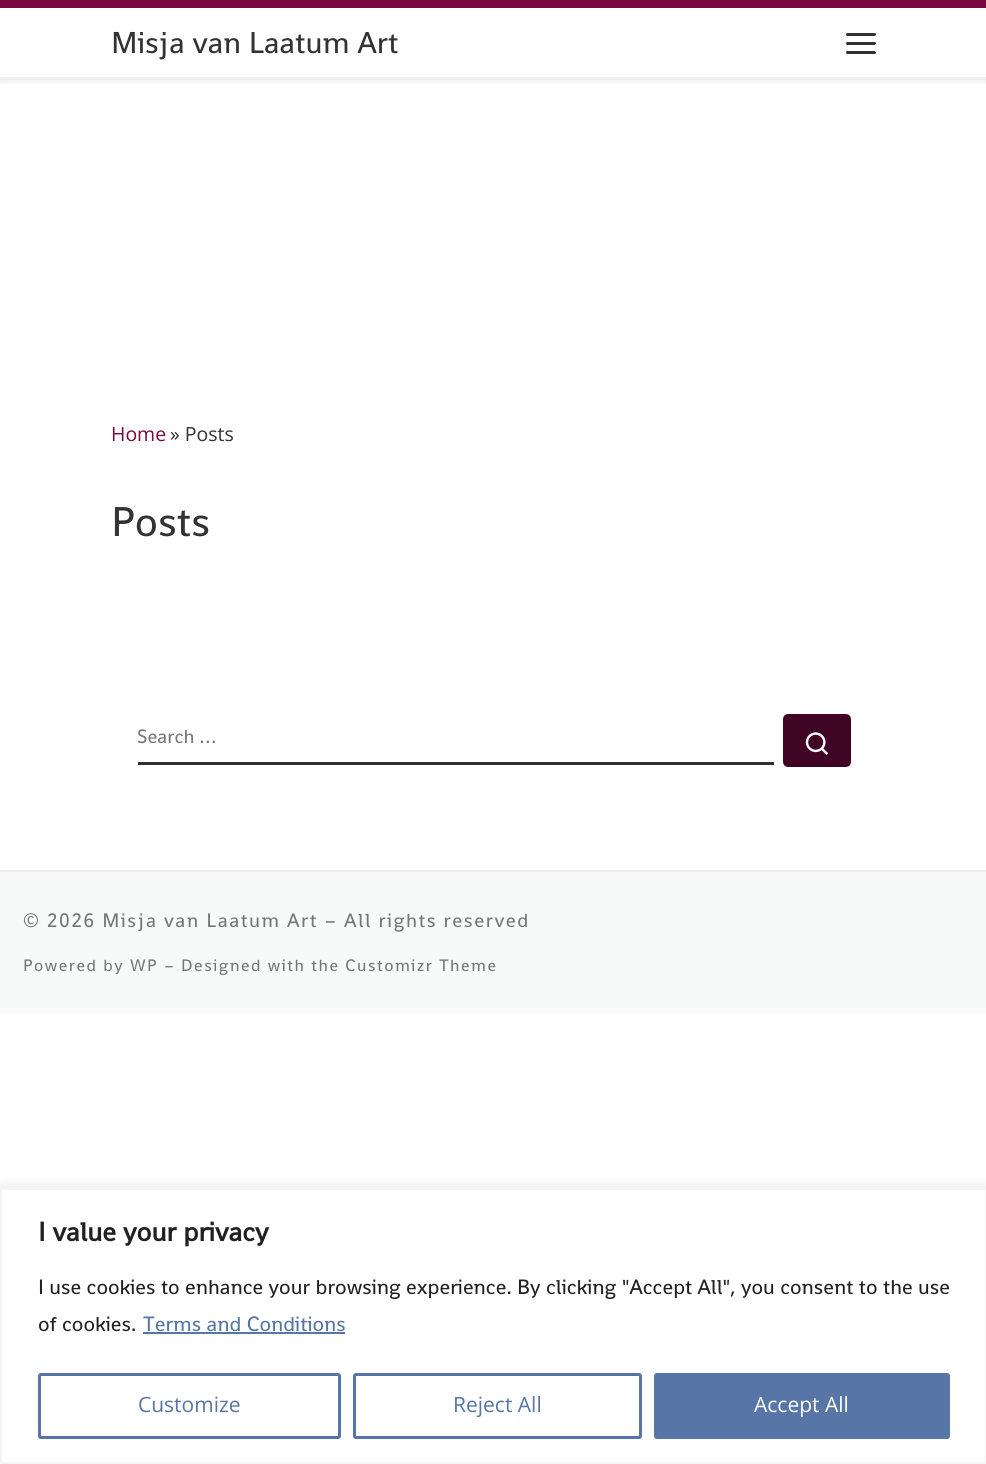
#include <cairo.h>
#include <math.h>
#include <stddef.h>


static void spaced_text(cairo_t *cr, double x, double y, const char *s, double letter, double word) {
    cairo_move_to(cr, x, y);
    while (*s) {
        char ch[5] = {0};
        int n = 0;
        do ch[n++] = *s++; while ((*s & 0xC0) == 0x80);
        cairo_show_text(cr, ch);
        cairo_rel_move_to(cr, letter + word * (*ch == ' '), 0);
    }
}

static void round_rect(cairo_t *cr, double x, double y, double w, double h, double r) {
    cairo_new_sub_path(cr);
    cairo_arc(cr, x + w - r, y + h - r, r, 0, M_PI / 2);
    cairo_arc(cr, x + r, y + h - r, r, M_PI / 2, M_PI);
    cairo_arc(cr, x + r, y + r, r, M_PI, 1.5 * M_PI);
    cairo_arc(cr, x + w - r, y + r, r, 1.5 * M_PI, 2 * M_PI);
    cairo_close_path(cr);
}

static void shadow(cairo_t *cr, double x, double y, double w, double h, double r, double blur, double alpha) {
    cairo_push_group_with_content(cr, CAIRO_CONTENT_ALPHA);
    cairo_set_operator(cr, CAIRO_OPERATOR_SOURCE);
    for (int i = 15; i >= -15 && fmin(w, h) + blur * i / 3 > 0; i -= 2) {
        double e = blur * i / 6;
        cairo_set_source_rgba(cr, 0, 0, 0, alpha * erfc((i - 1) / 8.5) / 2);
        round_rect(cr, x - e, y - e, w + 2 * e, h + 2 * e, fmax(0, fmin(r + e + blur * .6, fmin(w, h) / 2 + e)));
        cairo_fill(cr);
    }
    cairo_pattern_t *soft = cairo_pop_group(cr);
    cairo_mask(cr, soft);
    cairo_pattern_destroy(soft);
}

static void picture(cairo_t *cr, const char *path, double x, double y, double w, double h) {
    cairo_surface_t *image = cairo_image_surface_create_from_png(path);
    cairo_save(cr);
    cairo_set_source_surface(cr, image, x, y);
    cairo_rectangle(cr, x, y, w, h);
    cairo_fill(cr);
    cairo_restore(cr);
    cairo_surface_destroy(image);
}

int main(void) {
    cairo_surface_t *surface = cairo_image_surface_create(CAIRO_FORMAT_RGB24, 986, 1464);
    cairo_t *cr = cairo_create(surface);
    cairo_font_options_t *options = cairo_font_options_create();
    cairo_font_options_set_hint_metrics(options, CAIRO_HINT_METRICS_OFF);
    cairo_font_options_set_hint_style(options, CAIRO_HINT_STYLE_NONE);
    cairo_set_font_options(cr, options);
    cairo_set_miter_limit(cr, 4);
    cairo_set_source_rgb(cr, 1, 1, 1);
    cairo_paint(cr);
    cairo_set_source_rgb(cr, 0.4, 0.4, 0.4);
    shadow(cr, 0, 3, 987, 80, 0, 1.5, 0.08);
    cairo_set_source_rgb(cr, 1, 1, 1);
    cairo_rectangle(cr, 0, 8, 986, 69);
    cairo_fill(cr);
    cairo_set_source_rgb(cr, 0.475, 0.039, 0.263);
    cairo_rectangle(cr, 0, 0, 986, 8);
    cairo_fill(cr);
    cairo_set_source_rgb(cr, 0.925, 0.925, 0.925);
    cairo_rectangle(cr, 0, 79, 986, 1);
    cairo_fill(cr);
    cairo_select_font_face(cr, "Shanti", CAIRO_FONT_SLANT_NORMAL, CAIRO_FONT_WEIGHT_NORMAL);
    cairo_set_font_size(cr, 30.5);
    cairo_set_source_rgb(cr, 0.2, 0.2, 0.2);
    cairo_move_to(cr, 111, 53);
    cairo_show_text(cr, "Misja van Laatum Art");
    cairo_set_source_rgb(cr, 0.192, 0.192, 0.192);
    round_rect(cr, 846, 33, 30, 3, 1.5);
    cairo_fill(cr);
    round_rect(cr, 846, 42, 30, 3, 1.5);
    cairo_fill(cr);
    round_rect(cr, 846, 51, 30, 3, 1.5);
    cairo_fill(cr);
    cairo_set_source_rgb(cr, 0.941, 0.941, 0.941);
    cairo_rectangle(cr, 0, 77, 986, 2);
    cairo_fill(cr);
    cairo_select_font_face(cr, "Open Sans", CAIRO_FONT_SLANT_NORMAL, CAIRO_FONT_WEIGHT_NORMAL);
    cairo_set_font_size(cr, 19.5);
    cairo_set_source_rgb(cr, 0.475, 0.039, 0.263);
    cairo_move_to(cr, 111, 441);
    cairo_show_text(cr, "Home");
    cairo_set_source_rgb(cr, 0.2, 0.2, 0.2);
    cairo_move_to(cr, 170, 441);
    cairo_show_text(cr, "» Posts");
    cairo_select_font_face(cr, "Shanti", CAIRO_FONT_SLANT_NORMAL, CAIRO_FONT_WEIGHT_NORMAL);
    cairo_set_font_size(cr, 42);
    cairo_move_to(cr, 111, 536);
    cairo_show_text(cr, "Posts");
    cairo_set_source_rgb(cr, 0.192, 0.192, 0.192);
    cairo_rectangle(cr, 138, 762, 636, 3);
    cairo_fill(cr);
    cairo_set_font_size(cr, 19.5);
    cairo_set_source_rgb(cr, 0.467, 0.467, 0.467);
    cairo_move_to(cr, 137, 743);
    cairo_show_text(cr, "Search …");
    cairo_set_source_rgb(cr, 0.251, 0.02, 0.141);
    round_rect(cr, 784.5, 715.5, 65, 50, 3.5);
    cairo_fill_preserve(cr);
    cairo_set_line_width(cr, 3);
    cairo_stroke(cr);
    picture(cr, "img1.png", 805, 732, 24, 23);
    cairo_set_source_rgb(cr, 0.925, 0.933, 0.937);
    cairo_rectangle(cr, 0, 870, 986, 2);
    cairo_fill(cr);
    cairo_set_source_rgb(cr, 0.969, 0.973, 0.976);
    cairo_rectangle(cr, 0, 872, 986, 142);
    cairo_fill(cr);
    cairo_set_font_size(cr, 19.7);
    cairo_set_source_rgb(cr, 0.467, 0.467, 0.467);
    spaced_text(cr, 23, 927, "© 2026 Misja van Laatum Art – All rights reserved", 1.5, 0);
    cairo_set_font_size(cr, 16.8);
    spaced_text(cr, 23, 971, "Powered by WP – Designed with the Customizr Theme", 1.5, 0);
    cairo_set_source_rgb(cr, 0.675, 0.671, 0.671);
    shadow(cr, 0, 1187, 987, 276, 0, 7.5, 0.3);
    cairo_set_source_rgb(cr, 1, 1, 1);
    cairo_rectangle(cr, 1, 1189, 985, 274);
    cairo_fill_preserve(cr);
    cairo_set_source_rgb(cr, 0.957, 0.957, 0.957);
    cairo_set_line_width(cr, 2);
    cairo_stroke(cr);
    cairo_select_font_face(cr, "Shanti", CAIRO_FONT_SLANT_NORMAL, CAIRO_FONT_WEIGHT_BOLD);
    cairo_set_font_size(cr, 27);
    cairo_set_source_rgb(cr, 0.129, 0.129, 0.129);
    cairo_move_to(cr, 38, 1241);
    cairo_show_text(cr, "I value your privacy");
    cairo_select_font_face(cr, "Shanti", CAIRO_FONT_SLANT_NORMAL, CAIRO_FONT_WEIGHT_NORMAL);
    cairo_set_font_size(cr, 21);
    cairo_move_to(cr, 38, 1294);
    cairo_show_text(cr, "I use cookies to enhance your browsing experience. By clicking \"Accept All\", you consent to the use");
    cairo_move_to(cr, 38, 1331);
    cairo_show_text(cr, "of cookies.");
    cairo_set_source_rgb(cr, 0.341, 0.463, 0.655);
    cairo_move_to(cr, 143, 1331);
    cairo_show_text(cr, "Terms and Conditions");
    cairo_rectangle(cr, 143, 1332, 202, 2);
    cairo_fill(cr);
    round_rect(cr, 39.5, 1374.5, 300, 63, 1.5);
    cairo_set_line_width(cr, 3);
    cairo_stroke(cr);
    cairo_select_font_face(cr, "Open Sans", CAIRO_FONT_SLANT_NORMAL, CAIRO_FONT_WEIGHT_NORMAL);
    cairo_move_to(cr, 138, 1412);
    cairo_show_text(cr, "Customize");
    round_rect(cr, 354.5, 1374.5, 286, 63, 1.5);
    cairo_stroke(cr);
    cairo_move_to(cr, 453, 1412);
    cairo_show_text(cr, "Reject All");
    round_rect(cr, 655.5, 1374.5, 293, 63, 1.5);
    cairo_fill_preserve(cr);
    cairo_stroke(cr);
    cairo_set_source_rgb(cr, 1, 1, 1);
    cairo_move_to(cr, 754, 1412);
    cairo_show_text(cr, "Accept All");
    cairo_surface_write_to_png(surface, "page.png");
    cairo_font_options_destroy(options);
    cairo_destroy(cr);
    cairo_surface_destroy(surface);
    return 0;
}
